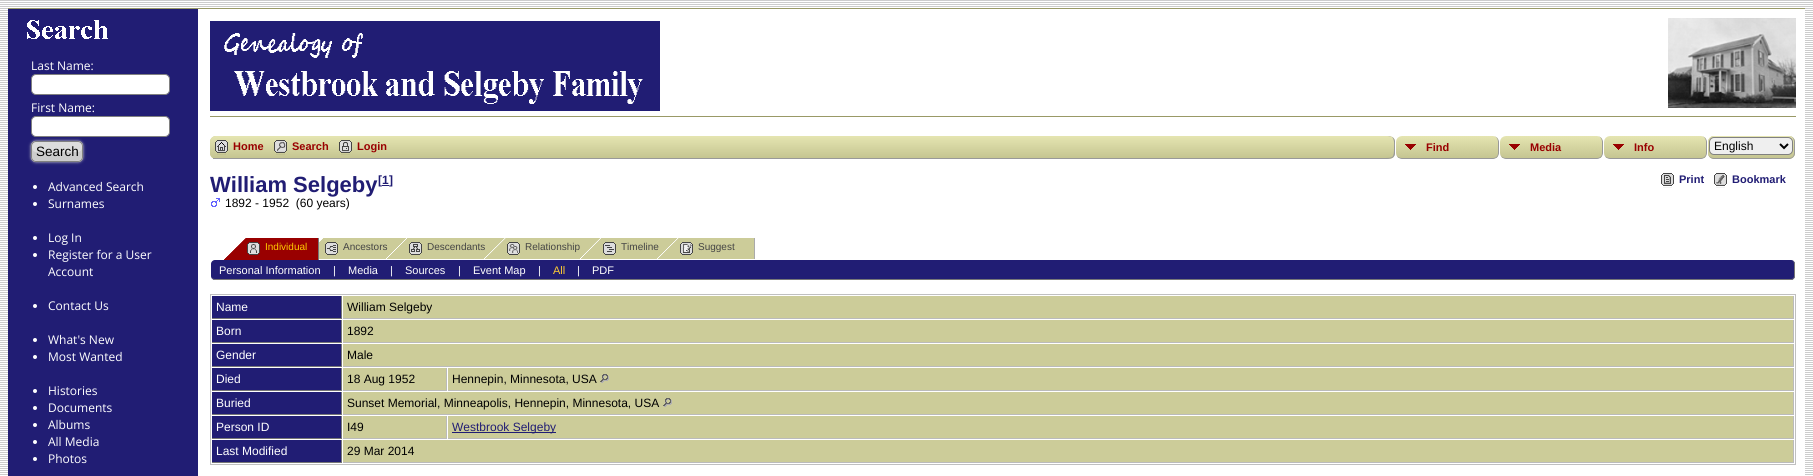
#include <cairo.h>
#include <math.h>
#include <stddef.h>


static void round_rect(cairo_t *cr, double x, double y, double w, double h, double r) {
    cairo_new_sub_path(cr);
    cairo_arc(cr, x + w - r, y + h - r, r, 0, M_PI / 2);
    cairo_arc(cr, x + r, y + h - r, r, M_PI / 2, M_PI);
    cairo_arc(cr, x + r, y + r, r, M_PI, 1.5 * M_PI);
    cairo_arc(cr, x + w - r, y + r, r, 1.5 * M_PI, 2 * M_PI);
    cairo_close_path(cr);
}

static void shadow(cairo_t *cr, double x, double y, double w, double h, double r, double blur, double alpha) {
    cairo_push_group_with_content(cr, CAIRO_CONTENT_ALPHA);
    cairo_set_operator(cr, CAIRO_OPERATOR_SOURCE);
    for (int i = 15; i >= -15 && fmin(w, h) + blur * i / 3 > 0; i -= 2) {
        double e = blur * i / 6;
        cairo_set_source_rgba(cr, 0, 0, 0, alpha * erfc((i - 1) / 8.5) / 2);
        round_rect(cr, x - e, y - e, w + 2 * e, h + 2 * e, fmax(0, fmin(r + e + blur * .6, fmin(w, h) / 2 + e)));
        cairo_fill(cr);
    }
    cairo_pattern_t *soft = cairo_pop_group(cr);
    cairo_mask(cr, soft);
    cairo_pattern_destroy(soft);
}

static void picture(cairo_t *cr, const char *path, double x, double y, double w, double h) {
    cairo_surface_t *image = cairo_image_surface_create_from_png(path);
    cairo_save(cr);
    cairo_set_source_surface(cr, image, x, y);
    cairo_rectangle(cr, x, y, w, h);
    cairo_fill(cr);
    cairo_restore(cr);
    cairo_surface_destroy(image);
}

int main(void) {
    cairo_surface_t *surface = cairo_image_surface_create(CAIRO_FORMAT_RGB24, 1813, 476);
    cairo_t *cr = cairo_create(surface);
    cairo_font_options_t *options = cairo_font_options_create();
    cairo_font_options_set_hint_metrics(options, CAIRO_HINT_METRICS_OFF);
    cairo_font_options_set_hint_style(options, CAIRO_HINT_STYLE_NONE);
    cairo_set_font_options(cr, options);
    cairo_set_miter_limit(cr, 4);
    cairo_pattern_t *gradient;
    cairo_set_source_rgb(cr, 1, 1, 1);
    cairo_paint(cr);
    picture(cr, "img1.png", 0, 0, 1813, 475);
    cairo_set_source_rgb(cr, 1, 1, 1);
    cairo_rectangle(cr, 198, 10, 1607, 465);
    cairo_fill(cr);
    cairo_set_source_rgb(cr, 0.6, 0.6, 0.4);
    cairo_rectangle(cr, 8, 8, 1797, 1);
    cairo_fill(cr);
    cairo_set_source_rgb(cr, 0.129, 0.114, 0.455);
    cairo_rectangle(cr, 8, 9, 190, 467);
    cairo_fill(cr);
    picture(cr, "img2.png", 27, 20, 81, 19);
    cairo_select_font_face(cr, "Open Sans", CAIRO_FONT_SLANT_NORMAL, CAIRO_FONT_WEIGHT_NORMAL);
    cairo_set_font_size(cr, 12);
    cairo_set_source_rgb(cr, 1, 1, 1);
    cairo_move_to(cr, 31, 70);
    cairo_show_text(cr, "Last Name:");
    round_rect(cr, 31.5, 74.5, 138, 20, 4.5);
    cairo_fill_preserve(cr);
    cairo_set_source_rgb(cr, 0.502, 0.502, 0.502);
    cairo_set_line_width(cr, 1);
    cairo_stroke(cr);
    cairo_set_source_rgb(cr, 1, 1, 1);
    cairo_move_to(cr, 31, 112);
    cairo_show_text(cr, "First Name:");
    round_rect(cr, 31.5, 116.5, 138, 20, 4.5);
    cairo_fill_preserve(cr);
    cairo_set_source_rgb(cr, 0.502, 0.502, 0.502);
    cairo_stroke(cr);
    cairo_set_source_rgb(cr, 0.8, 0.8, 0.8);
    shadow(cr, 31, 141, 52, 21, 5, 1.5, 1);
    cairo_set_source_rgb(cr, 0.867, 0.867, 0.867);
    round_rect(cr, 31, 141, 52, 21, 5);
    cairo_fill(cr);
    cairo_set_source_rgb(cr, 0.8, 0.8, 0.8);
    cairo_new_path(cr);
    cairo_move_to(cr, 32, 148);
    cairo_curve_to(cr, 32, 160, 30, 161, 43, 161);
    cairo_line_to(cr, 71, 161);
    cairo_curve_to(cr, 84, 161, 82, 160, 82, 148);
    cairo_curve_to(cr, 82, 150, 80, 152, 78, 152);
    cairo_line_to(cr, 36, 152);
    cairo_curve_to(cr, 34, 152, 32, 150, 32, 148);
    cairo_close_path(cr);
    cairo_fill(cr);
    round_rect(cr, 31.5, 141.5, 51, 20, 4.5);
    cairo_set_source_rgb(cr, 0.502, 0.502, 0.502);
    cairo_stroke(cr);
    cairo_select_font_face(cr, "Liberation Sans", CAIRO_FONT_SLANT_NORMAL, CAIRO_FONT_WEIGHT_NORMAL);
    cairo_set_font_size(cr, 13.5);
    cairo_set_source_rgb(cr, 0, 0, 0);
    cairo_move_to(cr, 36, 156);
    cairo_show_text(cr, "Search");
    cairo_set_source_rgb(cr, 1, 1, 1);
    cairo_new_path(cr);
    cairo_arc(cr, 35, 187, 2, 0, 2 * M_PI);
    cairo_fill(cr);
    cairo_select_font_face(cr, "Open Sans", CAIRO_FONT_SLANT_NORMAL, CAIRO_FONT_WEIGHT_NORMAL);
    cairo_set_font_size(cr, 12);
    cairo_move_to(cr, 48, 191);
    cairo_show_text(cr, "Advanced Search");
    cairo_new_path(cr);
    cairo_arc(cr, 35, 204, 2, 0, 2 * M_PI);
    cairo_fill(cr);
    cairo_move_to(cr, 48, 208);
    cairo_show_text(cr, "Surnames");
    cairo_new_path(cr);
    cairo_arc(cr, 35, 238, 2, 0, 2 * M_PI);
    cairo_fill(cr);
    cairo_move_to(cr, 48, 242);
    cairo_show_text(cr, "Log In");
    cairo_new_path(cr);
    cairo_arc(cr, 35, 255, 2, 0, 2 * M_PI);
    cairo_fill(cr);
    cairo_move_to(cr, 48, 259);
    cairo_show_text(cr, "Register for a User");
    cairo_move_to(cr, 48, 276);
    cairo_show_text(cr, "Account");
    cairo_new_path(cr);
    cairo_arc(cr, 35, 306, 2, 0, 2 * M_PI);
    cairo_fill(cr);
    cairo_move_to(cr, 48, 310);
    cairo_show_text(cr, "Contact Us");
    cairo_new_path(cr);
    cairo_arc(cr, 35, 340, 2, 0, 2 * M_PI);
    cairo_fill(cr);
    cairo_move_to(cr, 48, 344);
    cairo_show_text(cr, "What's New");
    cairo_new_path(cr);
    cairo_arc(cr, 35, 357, 2, 0, 2 * M_PI);
    cairo_fill(cr);
    cairo_move_to(cr, 48, 361);
    cairo_show_text(cr, "Most Wanted");
    cairo_new_path(cr);
    cairo_arc(cr, 35, 391, 2, 0, 2 * M_PI);
    cairo_fill(cr);
    cairo_move_to(cr, 48, 395);
    cairo_show_text(cr, "Histories");
    cairo_new_path(cr);
    cairo_arc(cr, 35, 408, 2, 0, 2 * M_PI);
    cairo_fill(cr);
    cairo_move_to(cr, 48, 412);
    cairo_show_text(cr, "Documents");
    cairo_new_path(cr);
    cairo_arc(cr, 35, 425, 2, 0, 2 * M_PI);
    cairo_fill(cr);
    cairo_move_to(cr, 48, 429);
    cairo_show_text(cr, "Albums");
    cairo_new_path(cr);
    cairo_arc(cr, 35, 442, 2, 0, 2 * M_PI);
    cairo_fill(cr);
    cairo_move_to(cr, 48, 446);
    cairo_show_text(cr, "All Media");
    cairo_new_path(cr);
    cairo_arc(cr, 35, 459, 2, 0, 2 * M_PI);
    cairo_fill(cr);
    cairo_move_to(cr, 48, 463);
    cairo_show_text(cr, "Photos");
    picture(cr, "img3.png", 210, 21, 450, 90);
    picture(cr, "img4.png", 1668, 18, 128, 90);
    cairo_set_source_rgb(cr, 0.6, 0.6, 0.4);
    cairo_rectangle(cr, 210, 116, 1586, 1);
    cairo_fill(cr);
    cairo_set_source_rgb(cr, 0.8, 0.8, 0.6);
    round_rect(cr, 210, 136, 1586, 23, 6);
    cairo_fill(cr);
    cairo_save(cr);
    round_rect(cr, 210, 136, 1586, 23, 6);
    cairo_clip(cr);
    gradient = cairo_pattern_create_linear(1003, 136, 1003, 158);
    cairo_pattern_add_color_stop_rgba(gradient, 0, 0.898, 0.898, 0.694, 1);
    cairo_pattern_add_color_stop_rgba(gradient, 1, 0.773, 0.773, 0.569, 1);
    cairo_set_source(cr, gradient);
    cairo_pattern_destroy(gradient);
    cairo_new_path(cr);
    cairo_move_to(cr, 216, 136);
    cairo_line_to(cr, 1790, 136);
    cairo_curve_to(cr, 1793.5, 136, 1796, 138.5, 1796, 142);
    cairo_line_to(cr, 1796, 158);
    cairo_line_to(cr, 210, 158);
    cairo_line_to(cr, 210, 142);
    cairo_curve_to(cr, 210, 138.5, 212.5, 136, 216, 136);
    cairo_close_path(cr);
    cairo_fill(cr);
    cairo_restore(cr);
    cairo_set_source_rgb(cr, 0.6, 0.6, 0.6);
    cairo_rectangle(cr, 213, 158, 1171, 1);
    cairo_fill(cr);
    picture(cr, "img5.png", 215, 140, 13, 15);
    cairo_select_font_face(cr, "Liberation Sans", CAIRO_FONT_SLANT_NORMAL, CAIRO_FONT_WEIGHT_BOLD);
    cairo_set_font_size(cr, 11);
    cairo_set_source_rgb(cr, 0.6, 0, 0);
    cairo_move_to(cr, 233, 150);
    cairo_show_text(cr, "Home");
    picture(cr, "img6.png", 274, 140, 13, 15);
    cairo_move_to(cr, 292, 150);
    cairo_show_text(cr, "Search");
    picture(cr, "img7.png", 339, 140, 13, 15);
    cairo_move_to(cr, 357, 150);
    cairo_show_text(cr, "Login");
    cairo_set_source_rgb(cr, 1, 1, 1);
    cairo_rectangle(cr, 1389, 136, 407, 23);
    cairo_fill(cr);
    cairo_save(cr);
    cairo_new_path(cr);
    cairo_move_to(cr, 1384, 136);
    cairo_line_to(cr, 1389, 136);
    cairo_curve_to(cr, 1392.5, 136, 1395, 138.5, 1395, 142);
    cairo_line_to(cr, 1395, 153);
    cairo_curve_to(cr, 1395, 156.5, 1392.5, 159, 1389, 159);
    cairo_line_to(cr, 1384, 159);
    cairo_close_path(cr);
    cairo_clip(cr);
    gradient = cairo_pattern_create_linear(1389, 136, 1389, 158);
    cairo_pattern_add_color_stop_rgba(gradient, 0, 0.898, 0.898, 0.694, 1);
    cairo_pattern_add_color_stop_rgba(gradient, 1, 0.773, 0.773, 0.569, 1);
    cairo_set_source(cr, gradient);
    cairo_pattern_destroy(gradient);
    cairo_rectangle(cr, 1384, 136, 11, 22);
    cairo_fill(cr);
    gradient = cairo_pattern_create_linear(1389, 158, 1389, 180);
    cairo_pattern_add_color_stop_rgba(gradient, 0, 0.898, 0.898, 0.694, 1);
    cairo_pattern_add_color_stop_rgba(gradient, 1, 0.773, 0.773, 0.569, 1);
    cairo_set_source(cr, gradient);
    cairo_pattern_destroy(gradient);
    cairo_rectangle(cr, 1384, 158, 11, 1);
    cairo_fill(cr);
    cairo_restore(cr);
    cairo_set_source_rgb(cr, 0.6, 0.6, 0.6);
    cairo_set_fill_rule(cr, CAIRO_FILL_RULE_EVEN_ODD);
    cairo_new_path(cr);
    cairo_move_to(cr, 1384, 136);
    cairo_curve_to(cr, 1388, 136, 1394, 135.5, 1395, 141);
    cairo_line_to(cr, 1395, 154);
    cairo_curve_to(cr, 1394, 159.5, 1388, 159, 1384, 159);
    cairo_close_path(cr);
    cairo_move_to(cr, 1384, 136);
    cairo_line_to(cr, 1390, 136);
    cairo_curve_to(cr, 1395, 137.5, 1394, 144, 1394, 147.5);
    cairo_curve_to(cr, 1394, 157.5, 1393.5, 158, 1384, 158);
    cairo_close_path(cr);
    cairo_fill(cr);
    picture(cr, "img8.png", 1396, 136, 102, 22);
    cairo_new_path(cr);
    cairo_move_to(cr, 1402, 136);
    cairo_line_to(cr, 1493, 136);
    cairo_curve_to(cr, 1496, 136, 1499, 139, 1499, 142);
    cairo_line_to(cr, 1499, 153);
    cairo_curve_to(cr, 1499, 156, 1496, 159, 1493, 159);
    cairo_line_to(cr, 1402, 159);
    cairo_curve_to(cr, 1399, 159, 1396, 156, 1396, 153);
    cairo_line_to(cr, 1396, 142);
    cairo_curve_to(cr, 1396, 139, 1399, 136, 1402, 136);
    cairo_close_path(cr);
    cairo_move_to(cr, 1402, 136);
    cairo_line_to(cr, 1493, 136);
    cairo_curve_to(cr, 1496, 136, 1498, 139, 1498, 142);
    cairo_line_to(cr, 1498, 153);
    cairo_curve_to(cr, 1498, 156, 1496, 158, 1493, 158);
    cairo_line_to(cr, 1402, 158);
    cairo_curve_to(cr, 1399, 158, 1396, 156, 1396, 153);
    cairo_line_to(cr, 1396, 142);
    cairo_curve_to(cr, 1396, 139, 1399, 136, 1402, 136);
    cairo_close_path(cr);
    cairo_fill(cr);
    cairo_set_source_rgb(cr, 0.6, 0, 0);
    cairo_move_to(cr, 1426, 151);
    cairo_show_text(cr, "Find");
    picture(cr, "img8.png", 1500, 136, 102, 22);
    cairo_set_source_rgb(cr, 0.6, 0.6, 0.6);
    cairo_new_path(cr);
    cairo_move_to(cr, 1506, 136);
    cairo_line_to(cr, 1597, 136);
    cairo_curve_to(cr, 1600, 136, 1603, 139, 1603, 142);
    cairo_line_to(cr, 1603, 153);
    cairo_curve_to(cr, 1603, 156, 1600, 159, 1597, 159);
    cairo_line_to(cr, 1506, 159);
    cairo_curve_to(cr, 1503, 159, 1500, 156, 1500, 153);
    cairo_line_to(cr, 1500, 142);
    cairo_curve_to(cr, 1500, 139, 1503, 136, 1506, 136);
    cairo_close_path(cr);
    cairo_move_to(cr, 1506, 136);
    cairo_line_to(cr, 1597, 136);
    cairo_curve_to(cr, 1600, 136, 1602, 139, 1602, 142);
    cairo_line_to(cr, 1602, 153);
    cairo_curve_to(cr, 1602, 156, 1600, 158, 1597, 158);
    cairo_line_to(cr, 1506, 158);
    cairo_curve_to(cr, 1503, 158, 1500, 156, 1500, 153);
    cairo_line_to(cr, 1500, 142);
    cairo_curve_to(cr, 1500, 139, 1503, 136, 1506, 136);
    cairo_close_path(cr);
    cairo_fill(cr);
    cairo_set_source_rgb(cr, 0.6, 0, 0);
    cairo_move_to(cr, 1530, 151);
    cairo_show_text(cr, "Media");
    picture(cr, "img8.png", 1604, 136, 102, 22);
    cairo_set_source_rgb(cr, 0.6, 0.6, 0.6);
    cairo_new_path(cr);
    cairo_move_to(cr, 1610, 136);
    cairo_line_to(cr, 1701, 136);
    cairo_curve_to(cr, 1704, 136, 1707, 139, 1707, 142);
    cairo_line_to(cr, 1707, 153);
    cairo_curve_to(cr, 1707, 156, 1704, 159, 1701, 159);
    cairo_line_to(cr, 1610, 159);
    cairo_curve_to(cr, 1607, 159, 1604, 156, 1604, 153);
    cairo_line_to(cr, 1604, 142);
    cairo_curve_to(cr, 1604, 139, 1607, 136, 1610, 136);
    cairo_close_path(cr);
    cairo_move_to(cr, 1610, 136);
    cairo_line_to(cr, 1701, 136);
    cairo_curve_to(cr, 1704, 136, 1706, 139, 1706, 142);
    cairo_line_to(cr, 1706, 153);
    cairo_curve_to(cr, 1706, 156, 1704, 158, 1701, 158);
    cairo_line_to(cr, 1610, 158);
    cairo_curve_to(cr, 1607, 158, 1604, 156, 1604, 153);
    cairo_line_to(cr, 1604, 142);
    cairo_curve_to(cr, 1604, 139, 1607, 136, 1610, 136);
    cairo_close_path(cr);
    cairo_fill(cr);
    cairo_set_source_rgb(cr, 0.6, 0, 0);
    cairo_move_to(cr, 1634, 151);
    cairo_show_text(cr, "Info");
    cairo_set_source_rgb(cr, 0.8, 0.8, 0.6);
    round_rect(cr, 1708, 136, 87, 23, 6);
    cairo_fill(cr);
    cairo_save(cr);
    cairo_set_fill_rule(cr, CAIRO_FILL_RULE_WINDING);
    round_rect(cr, 1708, 136, 87, 23, 6);
    cairo_clip(cr);
    gradient = cairo_pattern_create_linear(1751, 136, 1751, 158);
    cairo_pattern_add_color_stop_rgba(gradient, 0, 0.898, 0.898, 0.694, 1);
    cairo_pattern_add_color_stop_rgba(gradient, 1, 0.773, 0.773, 0.569, 1);
    cairo_set_source(cr, gradient);
    cairo_pattern_destroy(gradient);
    cairo_new_path(cr);
    cairo_move_to(cr, 1714, 136);
    cairo_line_to(cr, 1789, 136);
    cairo_curve_to(cr, 1792.5, 136, 1795, 138.5, 1795, 142);
    cairo_line_to(cr, 1795, 158);
    cairo_line_to(cr, 1708, 158);
    cairo_line_to(cr, 1708, 142);
    cairo_curve_to(cr, 1708, 138.5, 1710.5, 136, 1714, 136);
    cairo_close_path(cr);
    cairo_fill(cr);
    cairo_restore(cr);
    cairo_set_source_rgb(cr, 0.6, 0.6, 0.6);
    cairo_new_path(cr);
    cairo_move_to(cr, 1714, 136);
    cairo_line_to(cr, 1789, 136);
    cairo_curve_to(cr, 1792, 136, 1795, 139, 1795, 142);
    cairo_line_to(cr, 1795, 153);
    cairo_curve_to(cr, 1795, 156, 1792, 159, 1789, 159);
    cairo_line_to(cr, 1714, 159);
    cairo_curve_to(cr, 1711, 159, 1708, 156, 1708, 153);
    cairo_line_to(cr, 1708, 142);
    cairo_curve_to(cr, 1708, 139, 1711, 136, 1714, 136);
    cairo_close_path(cr);
    cairo_move_to(cr, 1714, 136);
    cairo_line_to(cr, 1789, 136);
    cairo_curve_to(cr, 1792, 136, 1794, 139, 1794, 142);
    cairo_line_to(cr, 1794, 153);
    cairo_curve_to(cr, 1794, 156, 1792, 158, 1789, 158);
    cairo_line_to(cr, 1714, 158);
    cairo_curve_to(cr, 1711, 158, 1708, 156, 1708, 153);
    cairo_line_to(cr, 1708, 142);
    cairo_curve_to(cr, 1708, 139, 1711, 136, 1714, 136);
    cairo_close_path(cr);
    cairo_fill(cr);
    cairo_set_source_rgb(cr, 0.937, 0.937, 0.937);
    round_rect(cr, 1709.5, 137.5, 83, 17, 4.5);
    cairo_fill_preserve(cr);
    cairo_set_source_rgb(cr, 0.502, 0.502, 0.502);
    cairo_stroke(cr);
    cairo_new_path(cr);
    cairo_move_to(cr, 1780, 144);
    cairo_line_to(cr, 1784, 148);
    cairo_line_to(cr, 1788, 144);
    cairo_set_source_rgb(cr, 0, 0, 0);
    cairo_set_line_width(cr, 2);
    cairo_stroke(cr);
    cairo_select_font_face(cr, "Liberation Sans", CAIRO_FONT_SLANT_NORMAL, CAIRO_FONT_WEIGHT_NORMAL);
    cairo_set_font_size(cr, 12);
    cairo_move_to(cr, 1714, 150);
    cairo_show_text(cr, "English");
    cairo_select_font_face(cr, "Liberation Sans", CAIRO_FONT_SLANT_NORMAL, CAIRO_FONT_WEIGHT_BOLD);
    cairo_set_font_size(cr, 22);
    cairo_set_source_rgb(cr, 0.129, 0.114, 0.455);
    cairo_move_to(cr, 210, 192);
    cairo_show_text(cr, "William Selgeby");
    cairo_set_font_size(cr, 12);
    cairo_move_to(cr, 378, 184);
    cairo_show_text(cr, "[1");
    cairo_rectangle(cr, 382, 185, 7, 1);
    cairo_fill(cr);
    cairo_move_to(cr, 389, 184);
    cairo_show_text(cr, "]");
    picture(cr, "img9.png", 211, 198, 9, 9);
    cairo_select_font_face(cr, "Liberation Sans", CAIRO_FONT_SLANT_NORMAL, CAIRO_FONT_WEIGHT_NORMAL);
    cairo_set_source_rgb(cr, 0, 0, 0);
    cairo_move_to(cr, 225, 207);
    cairo_show_text(cr, "1892 - 1952  (60 years)");
    picture(cr, "img10.png", 224, 238, 94, 22);
    cairo_set_source_rgb(cr, 0.467, 0.467, 0.467);
    cairo_rectangle(cr, 318, 238, 1, 22);
    cairo_fill(cr);
    picture(cr, "img11.png", 247, 242, 13, 13);
    cairo_set_font_size(cr, 10);
    cairo_set_source_rgb(cr, 1, 0.8, 0);
    cairo_move_to(cr, 265, 250);
    cairo_show_text(cr, "Individual");
    picture(cr, "img12.png", 319, 238, 87, 21);
    picture(cr, "img13.png", 325, 242, 13, 13);
    cairo_set_source_rgb(cr, 0.267, 0.267, 0.267);
    cairo_move_to(cr, 343, 250);
    cairo_show_text(cr, "Ancestors");
    picture(cr, "img14.png", 386, 238, 119, 21);
    picture(cr, "img15.png", 409, 242, 13, 13);
    cairo_move_to(cr, 427, 250);
    cairo_show_text(cr, "Descendants");
    picture(cr, "img16.png", 484, 238, 116, 21);
    picture(cr, "img17.png", 507, 242, 13, 13);
    cairo_move_to(cr, 525, 250);
    cairo_show_text(cr, "Relationship");
    picture(cr, "img18.png", 580, 238, 98, 21);
    picture(cr, "img19.png", 603, 242, 13, 13);
    cairo_move_to(cr, 621, 250);
    cairo_show_text(cr, "Timeline");
    picture(cr, "img20.png", 657, 238, 97, 21);
    cairo_set_source_rgb(cr, 0.667, 0.667, 0.667);
    cairo_rectangle(cr, 754, 238, 1, 21);
    cairo_fill(cr);
    picture(cr, "img21.png", 680, 242, 13, 13);
    cairo_set_source_rgb(cr, 0.267, 0.267, 0.267);
    cairo_move_to(cr, 698, 250);
    cairo_show_text(cr, "Suggest");
    cairo_set_source_rgb(cr, 0.129, 0.114, 0.455);
    round_rect(cr, 211, 260, 1584, 20, 4);
    cairo_fill(cr);
    cairo_set_source_rgb(cr, 0.467, 0.467, 0.467);
    cairo_new_path(cr);
    cairo_move_to(cr, 215, 260);
    cairo_line_to(cr, 1791, 260);
    cairo_curve_to(cr, 1793, 260, 1795, 262, 1795, 264);
    cairo_line_to(cr, 1795, 276);
    cairo_curve_to(cr, 1795, 278, 1793, 280, 1791, 280);
    cairo_line_to(cr, 215, 280);
    cairo_curve_to(cr, 213, 280, 211, 278, 211, 276);
    cairo_line_to(cr, 211, 264);
    cairo_curve_to(cr, 211, 262, 213, 260, 215, 260);
    cairo_close_path(cr);
    cairo_move_to(cr, 215, 260);
    cairo_line_to(cr, 1791, 260);
    cairo_curve_to(cr, 1793, 260, 1794, 262, 1794, 264);
    cairo_line_to(cr, 1794, 276);
    cairo_curve_to(cr, 1794, 278, 1793, 279, 1791, 279);
    cairo_line_to(cr, 215, 279);
    cairo_curve_to(cr, 213, 279, 211, 278, 211, 276);
    cairo_line_to(cr, 211, 264);
    cairo_curve_to(cr, 211, 262, 213, 260, 215, 260);
    cairo_close_path(cr);
    cairo_fill(cr);
    cairo_set_font_size(cr, 11);
    cairo_set_source_rgb(cr, 1, 1, 1);
    cairo_move_to(cr, 219, 274);
    cairo_show_text(cr, "Personal Information");
    cairo_move_to(cr, 333, 274);
    cairo_show_text(cr, "|");
    cairo_move_to(cr, 348, 274);
    cairo_show_text(cr, "Media");
    cairo_move_to(cr, 390, 274);
    cairo_show_text(cr, "|");
    cairo_move_to(cr, 405, 274);
    cairo_show_text(cr, "Sources");
    cairo_move_to(cr, 458, 274);
    cairo_show_text(cr, "|");
    cairo_move_to(cr, 473, 274);
    cairo_show_text(cr, "Event Map");
    cairo_move_to(cr, 538, 274);
    cairo_show_text(cr, "|");
    cairo_set_source_rgb(cr, 1, 0.8, 0.2);
    cairo_move_to(cr, 553, 274);
    cairo_show_text(cr, "All");
    cairo_set_source_rgb(cr, 1, 1, 1);
    cairo_move_to(cr, 577, 274);
    cairo_show_text(cr, "|");
    cairo_move_to(cr, 592, 274);
    cairo_show_text(cr, "PDF");
    cairo_rectangle(cr, 210.5, 294.5, 1585, 170);
    cairo_set_source_rgb(cr, 0.753, 0.753, 0.753);
    cairo_set_line_width(cr, 1);
    cairo_stroke(cr);
    cairo_set_source_rgb(cr, 0.129, 0.114, 0.455);
    cairo_rectangle(cr, 212, 296, 129, 22);
    cairo_fill(cr);
    cairo_set_source_rgb(cr, 0.467, 0.467, 0.467);
    cairo_rectangle(cr, 341, 296, 1, 23);
    cairo_fill(cr);
    cairo_rectangle(cr, 212, 318, 130, 1);
    cairo_fill(cr);
    cairo_set_font_size(cr, 12);
    cairo_set_source_rgb(cr, 1, 1, 1);
    cairo_move_to(cr, 216, 311);
    cairo_show_text(cr, "Name");
    cairo_set_source_rgb(cr, 0.8, 0.8, 0.6);
    cairo_rectangle(cr, 343, 296, 1450, 22);
    cairo_fill(cr);
    cairo_set_source_rgb(cr, 0.733, 0.733, 0.733);
    cairo_rectangle(cr, 1793, 296, 1, 23);
    cairo_fill(cr);
    cairo_rectangle(cr, 343, 318, 1451, 1);
    cairo_fill(cr);
    cairo_set_source_rgb(cr, 0, 0, 0);
    cairo_move_to(cr, 347, 311);
    cairo_show_text(cr, "William Selgeby");
    cairo_set_source_rgb(cr, 0.129, 0.114, 0.455);
    cairo_rectangle(cr, 212, 320, 129, 22);
    cairo_fill(cr);
    cairo_set_source_rgb(cr, 0.467, 0.467, 0.467);
    cairo_rectangle(cr, 341, 320, 1, 23);
    cairo_fill(cr);
    cairo_rectangle(cr, 212, 342, 130, 1);
    cairo_fill(cr);
    cairo_set_source_rgb(cr, 1, 1, 1);
    cairo_move_to(cr, 216, 335);
    cairo_show_text(cr, "Born");
    cairo_set_source_rgb(cr, 0.8, 0.8, 0.6);
    cairo_rectangle(cr, 343, 320, 1450, 22);
    cairo_fill(cr);
    cairo_set_source_rgb(cr, 0.733, 0.733, 0.733);
    cairo_rectangle(cr, 1793, 320, 1, 23);
    cairo_fill(cr);
    cairo_rectangle(cr, 343, 342, 1451, 1);
    cairo_fill(cr);
    cairo_set_source_rgb(cr, 0, 0, 0);
    cairo_move_to(cr, 347, 335);
    cairo_show_text(cr, "1892");
    cairo_set_source_rgb(cr, 0.129, 0.114, 0.455);
    cairo_rectangle(cr, 212, 344, 129, 22);
    cairo_fill(cr);
    cairo_set_source_rgb(cr, 0.467, 0.467, 0.467);
    cairo_rectangle(cr, 341, 344, 1, 23);
    cairo_fill(cr);
    cairo_rectangle(cr, 212, 366, 130, 1);
    cairo_fill(cr);
    cairo_set_source_rgb(cr, 1, 1, 1);
    cairo_move_to(cr, 216, 359);
    cairo_show_text(cr, "Gender");
    cairo_set_source_rgb(cr, 0.8, 0.8, 0.6);
    cairo_rectangle(cr, 343, 344, 1450, 22);
    cairo_fill(cr);
    cairo_set_source_rgb(cr, 0.733, 0.733, 0.733);
    cairo_rectangle(cr, 1793, 344, 1, 23);
    cairo_fill(cr);
    cairo_rectangle(cr, 343, 366, 1451, 1);
    cairo_fill(cr);
    cairo_set_source_rgb(cr, 0, 0, 0);
    cairo_move_to(cr, 347, 359);
    cairo_show_text(cr, "Male");
    cairo_set_source_rgb(cr, 0.129, 0.114, 0.455);
    cairo_rectangle(cr, 212, 368, 129, 22);
    cairo_fill(cr);
    cairo_set_source_rgb(cr, 0.467, 0.467, 0.467);
    cairo_rectangle(cr, 341, 368, 1, 23);
    cairo_fill(cr);
    cairo_rectangle(cr, 212, 390, 130, 1);
    cairo_fill(cr);
    cairo_set_source_rgb(cr, 1, 1, 1);
    cairo_move_to(cr, 216, 383);
    cairo_show_text(cr, "Died");
    cairo_set_source_rgb(cr, 0.8, 0.8, 0.6);
    cairo_rectangle(cr, 343, 368, 103, 22);
    cairo_fill(cr);
    cairo_set_source_rgb(cr, 0.733, 0.733, 0.733);
    cairo_rectangle(cr, 446, 368, 1, 23);
    cairo_fill(cr);
    cairo_rectangle(cr, 343, 390, 104, 1);
    cairo_fill(cr);
    cairo_set_source_rgb(cr, 0, 0, 0);
    cairo_move_to(cr, 347, 383);
    cairo_show_text(cr, "18 Aug 1952");
    cairo_set_source_rgb(cr, 0.8, 0.8, 0.6);
    cairo_rectangle(cr, 448, 368, 1345, 22);
    cairo_fill(cr);
    cairo_set_source_rgb(cr, 0.733, 0.733, 0.733);
    cairo_rectangle(cr, 1793, 368, 1, 23);
    cairo_fill(cr);
    cairo_rectangle(cr, 448, 390, 1346, 1);
    cairo_fill(cr);
    cairo_set_source_rgb(cr, 0, 0, 0);
    cairo_move_to(cr, 452, 383);
    cairo_show_text(cr, "Hennepin, Minnesota, USA");
    picture(cr, "img22.png", 600, 374, 9, 9);
    cairo_set_source_rgb(cr, 0.129, 0.114, 0.455);
    cairo_rectangle(cr, 212, 392, 129, 22);
    cairo_fill(cr);
    cairo_set_source_rgb(cr, 0.467, 0.467, 0.467);
    cairo_rectangle(cr, 341, 392, 1, 23);
    cairo_fill(cr);
    cairo_rectangle(cr, 212, 414, 130, 1);
    cairo_fill(cr);
    cairo_set_source_rgb(cr, 1, 1, 1);
    cairo_move_to(cr, 216, 407);
    cairo_show_text(cr, "Buried");
    cairo_set_source_rgb(cr, 0.8, 0.8, 0.6);
    cairo_rectangle(cr, 343, 392, 1450, 22);
    cairo_fill(cr);
    cairo_set_source_rgb(cr, 0.733, 0.733, 0.733);
    cairo_rectangle(cr, 1793, 392, 1, 23);
    cairo_fill(cr);
    cairo_rectangle(cr, 343, 414, 1451, 1);
    cairo_fill(cr);
    cairo_set_source_rgb(cr, 0, 0, 0);
    cairo_move_to(cr, 347, 407);
    cairo_show_text(cr, "Sunset Memorial, Minneapolis, Hennepin, Minnesota, USA");
    picture(cr, "img22.png", 663, 398, 9, 9);
    cairo_set_source_rgb(cr, 0.129, 0.114, 0.455);
    cairo_rectangle(cr, 212, 416, 129, 22);
    cairo_fill(cr);
    cairo_set_source_rgb(cr, 0.467, 0.467, 0.467);
    cairo_rectangle(cr, 341, 416, 1, 23);
    cairo_fill(cr);
    cairo_rectangle(cr, 212, 438, 130, 1);
    cairo_fill(cr);
    cairo_set_source_rgb(cr, 1, 1, 1);
    cairo_move_to(cr, 216, 431);
    cairo_show_text(cr, "Person ID");
    cairo_set_source_rgb(cr, 0.8, 0.8, 0.6);
    cairo_rectangle(cr, 343, 416, 103, 22);
    cairo_fill(cr);
    cairo_set_source_rgb(cr, 0.733, 0.733, 0.733);
    cairo_rectangle(cr, 446, 416, 1, 23);
    cairo_fill(cr);
    cairo_rectangle(cr, 343, 438, 104, 1);
    cairo_fill(cr);
    cairo_set_source_rgb(cr, 0, 0, 0);
    cairo_move_to(cr, 347, 431);
    cairo_show_text(cr, "I49");
    cairo_set_source_rgb(cr, 0.8, 0.8, 0.6);
    cairo_rectangle(cr, 448, 416, 1345, 22);
    cairo_fill(cr);
    cairo_set_source_rgb(cr, 0.733, 0.733, 0.733);
    cairo_rectangle(cr, 1793, 416, 1, 23);
    cairo_fill(cr);
    cairo_rectangle(cr, 448, 438, 1346, 1);
    cairo_fill(cr);
    cairo_set_source_rgb(cr, 0.129, 0.114, 0.455);
    cairo_rectangle(cr, 452, 432, 104, 1);
    cairo_fill(cr);
    cairo_move_to(cr, 452, 431);
    cairo_show_text(cr, "Westbrook Selgeby");
    cairo_rectangle(cr, 212, 440, 129, 22);
    cairo_fill(cr);
    cairo_set_source_rgb(cr, 0.467, 0.467, 0.467);
    cairo_rectangle(cr, 341, 440, 1, 23);
    cairo_fill(cr);
    cairo_rectangle(cr, 212, 462, 130, 1);
    cairo_fill(cr);
    cairo_set_source_rgb(cr, 1, 1, 1);
    cairo_move_to(cr, 216, 455);
    cairo_show_text(cr, "Last Modified");
    cairo_set_source_rgb(cr, 0.8, 0.8, 0.6);
    cairo_rectangle(cr, 343, 440, 1450, 22);
    cairo_fill(cr);
    cairo_set_source_rgb(cr, 0.733, 0.733, 0.733);
    cairo_rectangle(cr, 1793, 440, 1, 23);
    cairo_fill(cr);
    cairo_rectangle(cr, 343, 462, 1451, 1);
    cairo_fill(cr);
    cairo_set_source_rgb(cr, 0, 0, 0);
    cairo_move_to(cr, 347, 455);
    cairo_show_text(cr, "29 Mar 2014");
    picture(cr, "img23.png", 1661, 173, 13, 15);
    cairo_select_font_face(cr, "Liberation Sans", CAIRO_FONT_SLANT_NORMAL, CAIRO_FONT_WEIGHT_BOLD);
    cairo_set_font_size(cr, 11);
    cairo_set_source_rgb(cr, 0.129, 0.114, 0.455);
    cairo_move_to(cr, 1679, 183);
    cairo_show_text(cr, "Print");
    picture(cr, "img24.png", 1714, 173, 13, 15);
    cairo_move_to(cr, 1732, 183);
    cairo_show_text(cr, "Bookmark");
    cairo_surface_write_to_png(surface, "page.png");
    cairo_font_options_destroy(options);
    cairo_destroy(cr);
    cairo_surface_destroy(surface);
    return 0;
}
